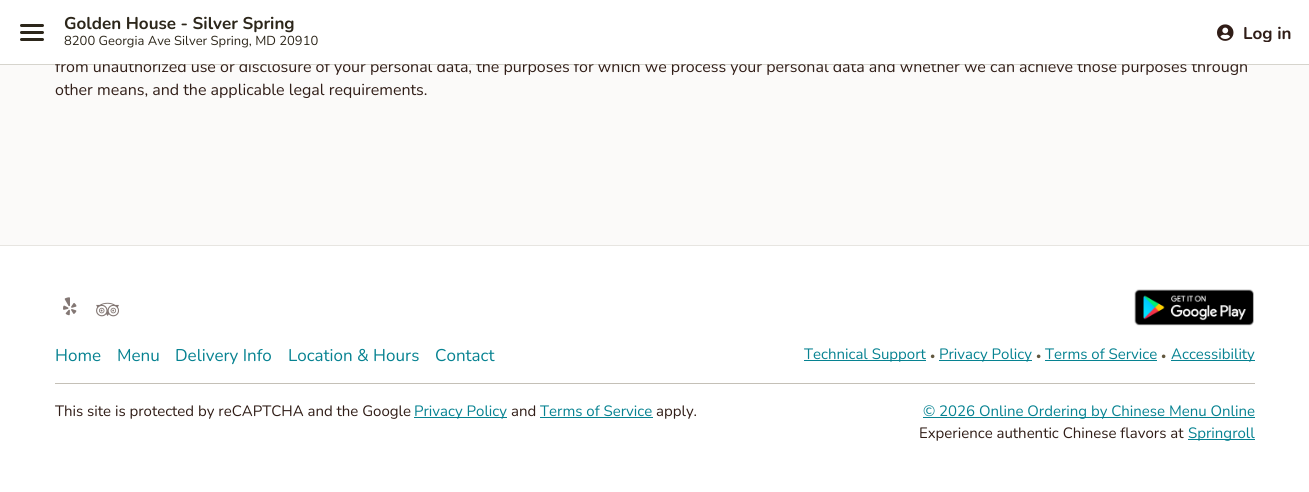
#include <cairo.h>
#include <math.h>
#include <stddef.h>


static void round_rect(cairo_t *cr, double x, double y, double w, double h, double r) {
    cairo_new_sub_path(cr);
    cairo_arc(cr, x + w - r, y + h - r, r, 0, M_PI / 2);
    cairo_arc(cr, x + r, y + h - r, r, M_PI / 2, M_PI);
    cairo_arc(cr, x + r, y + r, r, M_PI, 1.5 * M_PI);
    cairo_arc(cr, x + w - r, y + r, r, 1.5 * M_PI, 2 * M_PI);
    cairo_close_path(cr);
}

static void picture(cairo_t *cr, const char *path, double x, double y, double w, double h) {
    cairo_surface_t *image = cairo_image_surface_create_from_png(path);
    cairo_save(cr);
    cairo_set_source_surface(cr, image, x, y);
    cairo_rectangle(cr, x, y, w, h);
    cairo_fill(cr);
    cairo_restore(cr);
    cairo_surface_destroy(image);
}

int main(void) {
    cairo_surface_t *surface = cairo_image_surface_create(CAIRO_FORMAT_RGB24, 1309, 492);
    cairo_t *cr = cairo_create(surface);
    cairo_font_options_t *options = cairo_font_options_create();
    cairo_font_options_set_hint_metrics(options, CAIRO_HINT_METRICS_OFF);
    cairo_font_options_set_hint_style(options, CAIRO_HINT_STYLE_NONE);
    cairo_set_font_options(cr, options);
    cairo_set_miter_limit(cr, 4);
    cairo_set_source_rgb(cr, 0.984, 0.98, 0.976);
    cairo_paint(cr);
    cairo_select_font_face(cr, "Nunito", CAIRO_FONT_SLANT_NORMAL, CAIRO_FONT_WEIGHT_NORMAL);
    cairo_set_font_size(cr, 16);
    cairo_set_source_rgb(cr, 0.188, 0.114, 0.09);
    cairo_move_to(cr, 55, 72);
    cairo_show_text(cr, "from unauthorized use or disclosure of your personal data, the purposes for which we process your personal data and whether we can achieve those purposes through");
    cairo_set_source_rgba(cr, 0.58, 0.553, 0.486, 0.35);
    cairo_rectangle(cr, 0, 64, 1309, 1);
    cairo_fill(cr);
    cairo_set_source_rgb(cr, 1, 1, 1);
    cairo_rectangle(cr, 0, 0, 1309, 64);
    cairo_fill(cr);
    cairo_set_source_rgb(cr, 0.173, 0.149, 0.102);
    round_rect(cr, 20, 24, 24, 3, 1.5);
    cairo_fill(cr);
    round_rect(cr, 20, 31, 24, 3, 1.5);
    cairo_fill(cr);
    round_rect(cr, 20, 38, 24, 3, 1.5);
    cairo_fill(cr);
    cairo_select_font_face(cr, "Nunito", CAIRO_FONT_SLANT_NORMAL, CAIRO_FONT_WEIGHT_BOLD);
    cairo_set_font_size(cr, 17);
    cairo_move_to(cr, 64, 29);
    cairo_show_text(cr, "Golden House - Silver Spring");
    cairo_select_font_face(cr, "Nunito", CAIRO_FONT_SLANT_NORMAL, CAIRO_FONT_WEIGHT_NORMAL);
    cairo_set_font_size(cr, 13);
    cairo_move_to(cr, 64, 45);
    cairo_show_text(cr, "8200 Georgia Ave Silver Spring, MD 20910");
    picture(cr, "img1.png", 1217, 24, 17, 17);
    cairo_save(cr);
    cairo_rectangle(cr, 1243, 25, 49, 17);
    cairo_clip(cr);
    cairo_select_font_face(cr, "Nunito", CAIRO_FONT_SLANT_NORMAL, CAIRO_FONT_WEIGHT_BOLD);
    cairo_set_font_size(cr, 17);
    cairo_set_source_rgb(cr, 0.188, 0.114, 0.09);
    cairo_move_to(cr, 1243, 39);
    cairo_show_text(cr, "Log in");
    cairo_restore(cr);
    cairo_set_font_size(cr, 16);
    cairo_set_source_rgb(cr, 0.188, 0.114, 0.09);
    cairo_move_to(cr, 55, 95);
    cairo_show_text(cr, "other means, and the applicable legal requirements.");
    cairo_set_source_rgb(cr, 1, 1, 1);
    cairo_rectangle(cr, 0, 246, 1309, 246);
    cairo_fill(cr);
    cairo_set_source_rgb(cr, 0.906, 0.898, 0.882);
    cairo_rectangle(cr, 0, 245, 1309, 1);
    cairo_fill(cr);
    picture(cr, "img2.png", 63, 297, 14, 19);
    picture(cr, "img3.png", 96, 302, 23, 15);
    picture(cr, "img4.png", 1134, 289, 120, 37);
    cairo_set_font_size(cr, 17);
    cairo_set_source_rgb(cr, 0.027, 0.51, 0.569);
    cairo_move_to(cr, 55, 361);
    cairo_show_text(cr, "Home");
    cairo_move_to(cr, 117, 361);
    cairo_show_text(cr, "Menu");
    cairo_move_to(cr, 175, 361);
    cairo_show_text(cr, "Delivery Info");
    cairo_move_to(cr, 288, 361);
    cairo_show_text(cr, "Location & Hours");
    cairo_move_to(cr, 435, 361);
    cairo_show_text(cr, "Contact");
    cairo_rectangle(cr, 804, 360, 122, 1);
    cairo_fill(cr);
    cairo_set_font_size(cr, 15);
    cairo_move_to(cr, 804, 359);
    cairo_show_text(cr, "Technical Support");
    cairo_set_font_size(cr, 10);
    cairo_set_source_rgb(cr, 0.384, 0.341, 0.243);
    cairo_move_to(cr, 930, 359);
    cairo_show_text(cr, "•");
    cairo_set_source_rgb(cr, 0.027, 0.51, 0.569);
    cairo_rectangle(cr, 939, 360, 93, 1);
    cairo_fill(cr);
    cairo_set_font_size(cr, 15);
    cairo_move_to(cr, 939, 359);
    cairo_show_text(cr, "Privacy Policy");
    cairo_set_font_size(cr, 10);
    cairo_set_source_rgb(cr, 0.384, 0.341, 0.243);
    cairo_move_to(cr, 1036, 359);
    cairo_show_text(cr, "•");
    cairo_set_font_size(cr, 15);
    cairo_set_source_rgb(cr, 0.027, 0.51, 0.569);
    cairo_move_to(cr, 1045, 359);
    cairo_show_text(cr, "Terms of Service");
    cairo_rectangle(cr, 1045, 360, 112, 1);
    cairo_fill(cr);
    cairo_set_font_size(cr, 10);
    cairo_set_source_rgb(cr, 0.384, 0.341, 0.243);
    cairo_move_to(cr, 1161, 359);
    cairo_show_text(cr, "•");
    cairo_set_source_rgb(cr, 0.027, 0.51, 0.569);
    cairo_rectangle(cr, 1171, 360, 84, 1);
    cairo_fill(cr);
    cairo_set_font_size(cr, 15);
    cairo_move_to(cr, 1171, 359);
    cairo_show_text(cr, "Accessibility");
    cairo_set_source_rgb(cr, 0.769, 0.753, 0.718);
    cairo_rectangle(cr, 55, 383, 1200, 1);
    cairo_fill(cr);
    cairo_set_source_rgb(cr, 0.188, 0.114, 0.09);
    cairo_move_to(cr, 55, 416);
    cairo_show_text(cr, "This site is protected by reCAPTCHA and the Google");
    cairo_set_source_rgb(cr, 0.027, 0.51, 0.569);
    cairo_rectangle(cr, 414, 417, 93, 1);
    cairo_fill(cr);
    cairo_move_to(cr, 414, 416);
    cairo_show_text(cr, "Privacy Policy");
    cairo_set_source_rgb(cr, 0.188, 0.114, 0.09);
    cairo_move_to(cr, 511, 416);
    cairo_show_text(cr, "and");
    cairo_set_source_rgb(cr, 0.027, 0.51, 0.569);
    cairo_move_to(cr, 540, 416);
    cairo_show_text(cr, "Terms of Service");
    cairo_rectangle(cr, 540, 417, 113, 1);
    cairo_fill(cr);
    cairo_set_source_rgb(cr, 0.188, 0.114, 0.09);
    cairo_move_to(cr, 656, 416);
    cairo_show_text(cr, "apply.");
    cairo_set_source_rgb(cr, 0.027, 0.51, 0.569);
    cairo_rectangle(cr, 923, 417, 332, 1);
    cairo_fill(cr);
    cairo_move_to(cr, 923, 416);
    cairo_show_text(cr, "© 2026 Online Ordering by Chinese Menu Online");
    cairo_set_source_rgb(cr, 0.188, 0.114, 0.09);
    cairo_move_to(cr, 919, 438);
    cairo_show_text(cr, "Experience authentic Chinese flavors at");
    cairo_set_source_rgb(cr, 0.027, 0.51, 0.569);
    cairo_rectangle(cr, 1188, 439, 67, 1);
    cairo_fill(cr);
    cairo_move_to(cr, 1188, 438);
    cairo_show_text(cr, "Springroll");
    cairo_surface_write_to_png(surface, "page.png");
    cairo_font_options_destroy(options);
    cairo_destroy(cr);
    cairo_surface_destroy(surface);
    return 0;
}
